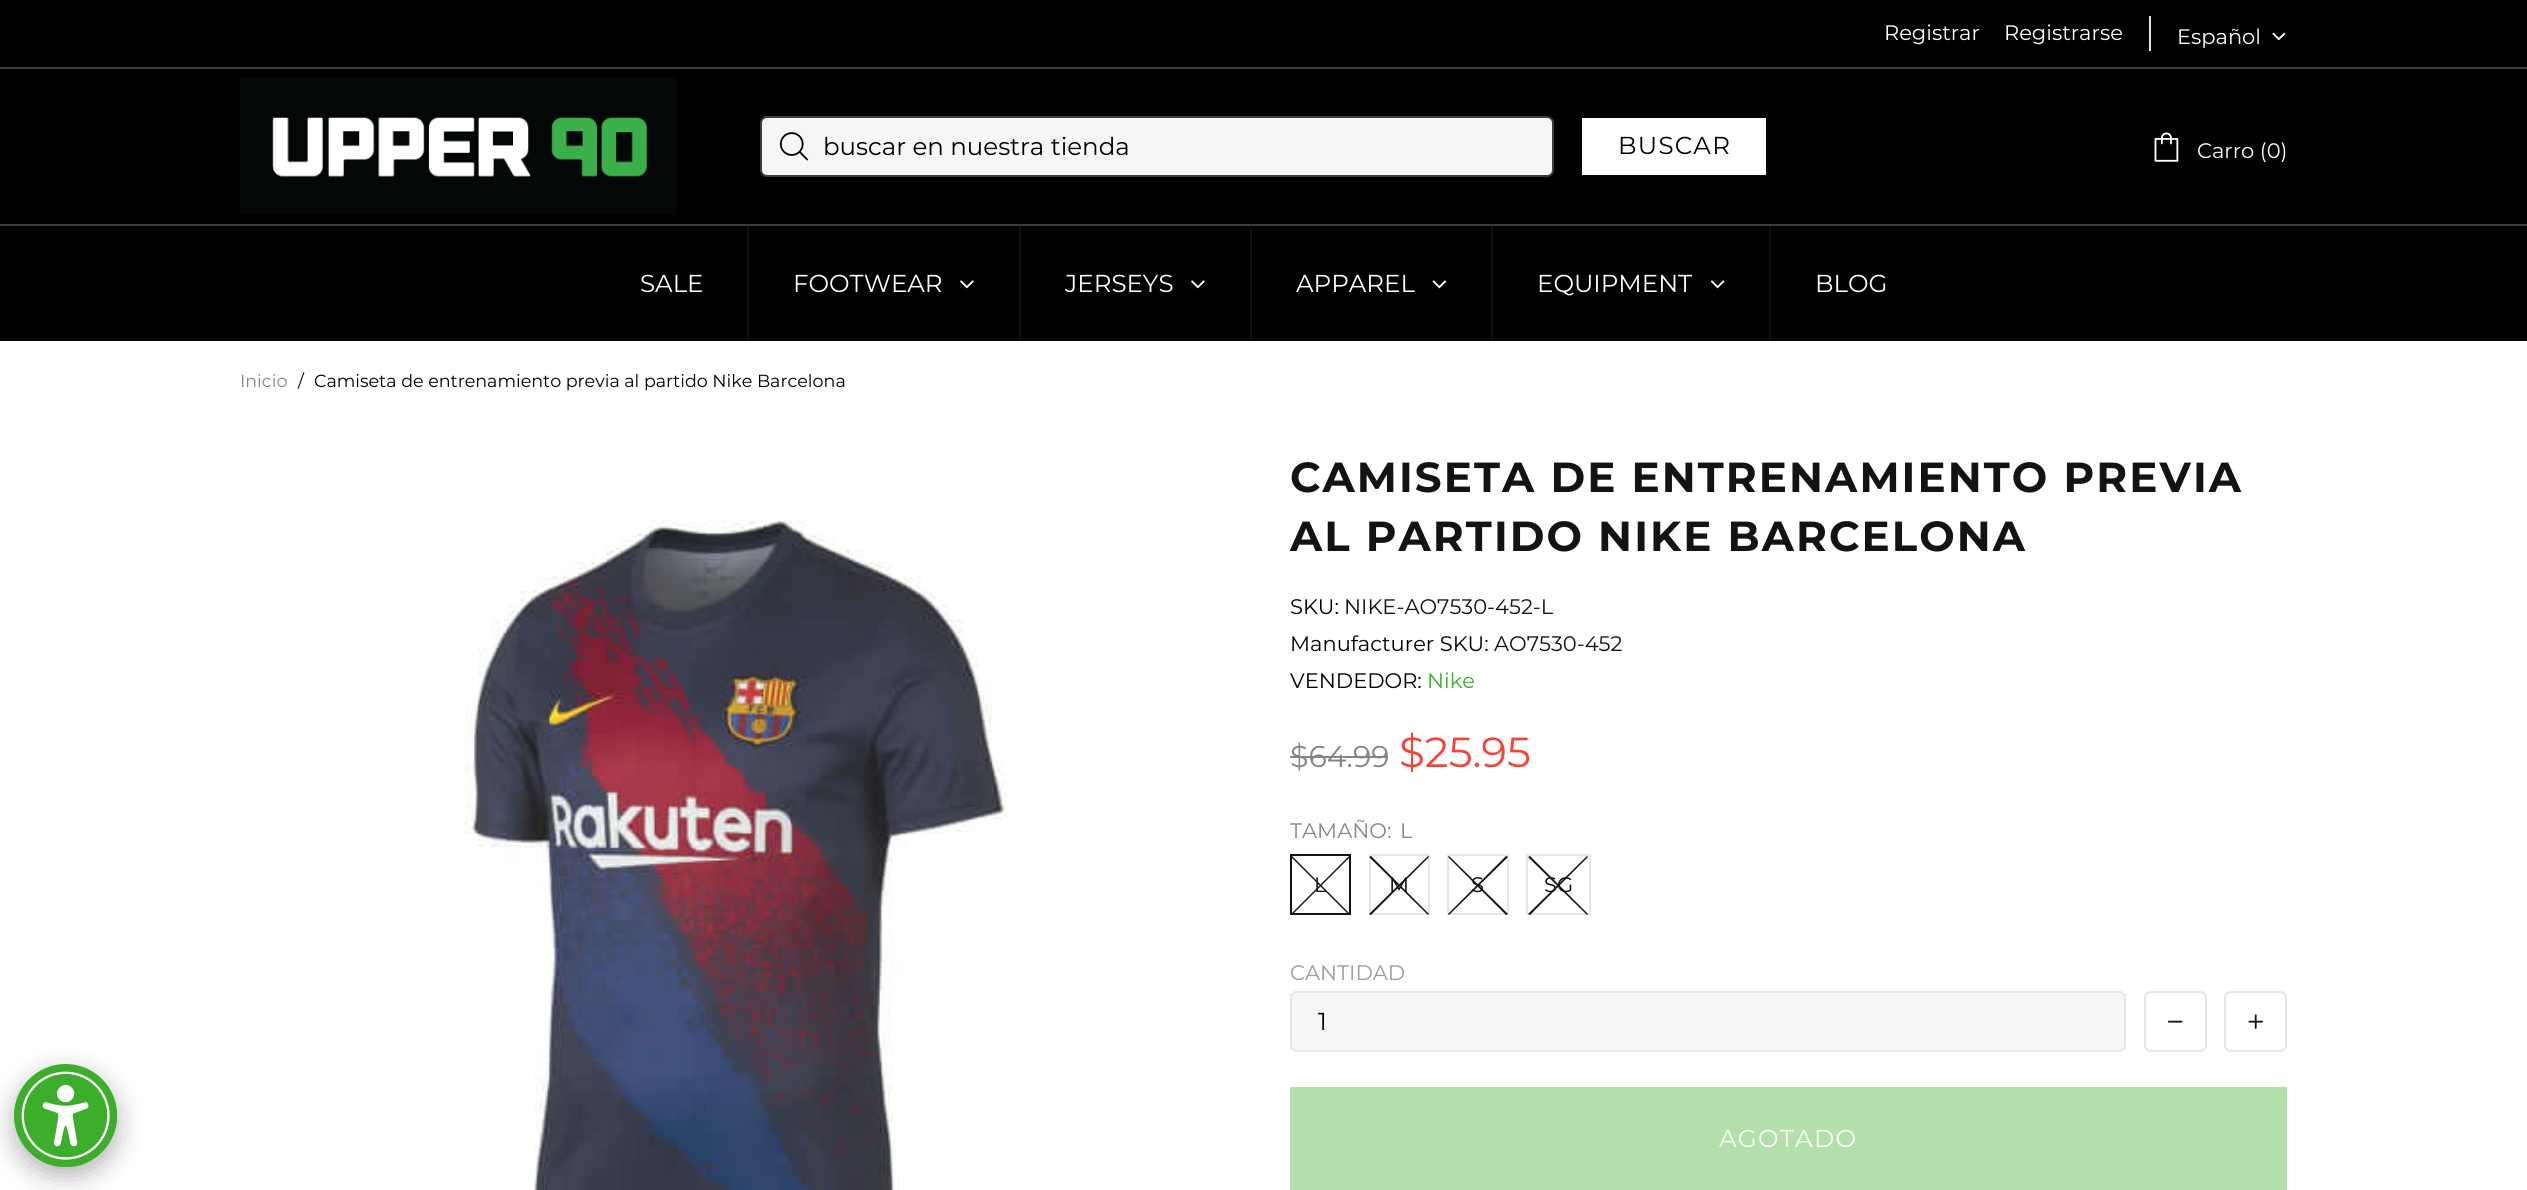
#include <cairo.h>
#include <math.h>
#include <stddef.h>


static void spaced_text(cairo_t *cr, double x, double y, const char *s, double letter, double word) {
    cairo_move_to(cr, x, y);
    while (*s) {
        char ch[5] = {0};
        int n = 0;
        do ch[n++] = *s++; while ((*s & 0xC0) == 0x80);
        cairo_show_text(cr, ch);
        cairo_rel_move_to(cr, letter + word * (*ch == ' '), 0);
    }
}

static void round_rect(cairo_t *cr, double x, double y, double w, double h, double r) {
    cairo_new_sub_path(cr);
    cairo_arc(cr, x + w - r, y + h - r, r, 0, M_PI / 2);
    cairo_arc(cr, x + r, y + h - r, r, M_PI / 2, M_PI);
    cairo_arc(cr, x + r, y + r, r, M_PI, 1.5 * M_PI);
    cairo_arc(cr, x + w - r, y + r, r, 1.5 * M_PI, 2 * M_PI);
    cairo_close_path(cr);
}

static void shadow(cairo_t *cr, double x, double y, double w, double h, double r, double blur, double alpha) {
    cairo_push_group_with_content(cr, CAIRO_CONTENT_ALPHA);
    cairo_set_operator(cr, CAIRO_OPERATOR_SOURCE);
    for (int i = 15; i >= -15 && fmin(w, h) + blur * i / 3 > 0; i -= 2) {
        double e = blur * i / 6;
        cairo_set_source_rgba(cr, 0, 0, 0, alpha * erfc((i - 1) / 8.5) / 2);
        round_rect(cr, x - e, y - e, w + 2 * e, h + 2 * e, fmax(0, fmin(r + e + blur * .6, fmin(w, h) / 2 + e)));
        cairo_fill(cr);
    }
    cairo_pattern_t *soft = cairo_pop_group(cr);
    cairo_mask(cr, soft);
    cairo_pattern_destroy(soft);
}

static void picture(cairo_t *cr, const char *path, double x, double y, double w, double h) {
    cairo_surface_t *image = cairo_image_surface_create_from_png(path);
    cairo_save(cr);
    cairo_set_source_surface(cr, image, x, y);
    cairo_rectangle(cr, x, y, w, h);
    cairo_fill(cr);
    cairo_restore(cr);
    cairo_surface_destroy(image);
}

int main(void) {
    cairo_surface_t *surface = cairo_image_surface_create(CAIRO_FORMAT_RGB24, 2527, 1190);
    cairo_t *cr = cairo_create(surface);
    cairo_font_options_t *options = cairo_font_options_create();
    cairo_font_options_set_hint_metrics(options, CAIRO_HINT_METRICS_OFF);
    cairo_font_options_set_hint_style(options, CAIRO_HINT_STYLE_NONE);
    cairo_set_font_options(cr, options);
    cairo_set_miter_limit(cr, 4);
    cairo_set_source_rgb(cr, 1, 1, 1);
    cairo_paint(cr);
    cairo_set_source_rgb(cr, 0, 0, 0);
    shadow(cr, 14, 1073, 103, 103, 51.5, 13, 0.3);
    picture(cr, "img1.png", 14, 1064, 103, 103);
    cairo_set_source_rgb(cr, 0, 0, 0);
    cairo_rectangle(cr, 0, 0, 2527, 67);
    cairo_fill(cr);
    cairo_set_source_rgb(cr, 0.243, 0.243, 0.243);
    cairo_rectangle(cr, 0, 67, 2527, 2);
    cairo_fill(cr);
    cairo_select_font_face(cr, "Montserrat Thin", CAIRO_FONT_SLANT_NORMAL, CAIRO_FONT_WEIGHT_NORMAL);
    cairo_set_font_size(cr, 21);
    cairo_set_source_rgb(cr, 1, 1, 1);
    cairo_move_to(cr, 1884, 40);
    cairo_show_text(cr, "Registrar");
    cairo_move_to(cr, 2004, 40);
    cairo_show_text(cr, "Registrarse");
    cairo_set_source_rgb(cr, 0.898, 0.898, 0.898);
    cairo_rectangle(cr, 2149, 16, 2, 35);
    cairo_fill(cr);
    cairo_set_source_rgb(cr, 1, 1, 1);
    cairo_move_to(cr, 2177, 44);
    cairo_show_text(cr, "Español");
    picture(cr, "img2.png", 2272, 32, 14, 8);
    cairo_set_source_rgb(cr, 0, 0, 0);
    cairo_rectangle(cr, 0, 69, 2527, 155);
    cairo_fill(cr);
    cairo_set_source_rgb(cr, 0.243, 0.243, 0.243);
    cairo_rectangle(cr, 0, 224, 2527, 2);
    cairo_fill(cr);
    picture(cr, "img3.png", 240, 77, 437, 138);
    cairo_set_source_rgb(cr, 0.961, 0.961, 0.961);
    round_rect(cr, 761, 117, 792, 59, 6);
    cairo_fill_preserve(cr);
    cairo_set_source_rgb(cr, 0.243, 0.243, 0.243);
    cairo_stroke(cr);
    picture(cr, "img4.png", 779, 132, 30, 29);
    cairo_set_font_size(cr, 24.5);
    cairo_set_source_rgb(cr, 0, 0, 0);
    cairo_move_to(cr, 823, 155);
    cairo_show_text(cr, "buscar en nuestra tienda");
    cairo_set_source_rgb(cr, 1, 1, 1);
    cairo_rectangle(cr, 1582, 118, 184, 57);
    cairo_fill(cr);
    cairo_set_source_rgb(cr, 0, 0, 0);
    spaced_text(cr, 1618, 154, "BUSCAR", 1.25, 0);
    picture(cr, "img5.png", 2154, 132, 25, 30);
    cairo_set_font_size(cr, 21);
    cairo_set_source_rgb(cr, 1, 1, 1);
    cairo_move_to(cr, 2197, 158);
    cairo_show_text(cr, "Carro (0)");
    cairo_set_source_rgb(cr, 0, 0, 0);
    cairo_rectangle(cr, 0, 226, 2527, 115);
    cairo_fill(cr);
    cairo_set_font_size(cr, 24.5);
    cairo_set_source_rgb(cr, 1, 1, 1);
    cairo_move_to(cr, 640, 292);
    cairo_show_text(cr, "SALE");
    cairo_set_source_rgb(cr, 0.059, 0.059, 0.059);
    cairo_rectangle(cr, 747, 226, 2, 115);
    cairo_fill(cr);
    cairo_set_source_rgb(cr, 1, 1, 1);
    cairo_move_to(cr, 793, 292);
    cairo_show_text(cr, "FOOTWEAR");
    picture(cr, "img6.png", 960, 280, 14, 9);
    cairo_set_source_rgb(cr, 0.059, 0.059, 0.059);
    cairo_rectangle(cr, 1019, 226, 2, 115);
    cairo_fill(cr);
    cairo_set_source_rgb(cr, 1, 1, 1);
    cairo_move_to(cr, 1065, 292);
    cairo_show_text(cr, "JERSEYS");
    picture(cr, "img6.png", 1191, 280, 14, 9);
    cairo_set_source_rgb(cr, 0.059, 0.059, 0.059);
    cairo_rectangle(cr, 1250, 226, 2, 115);
    cairo_fill(cr);
    cairo_set_source_rgb(cr, 1, 1, 1);
    cairo_move_to(cr, 1296, 292);
    cairo_show_text(cr, "APPAREL");
    picture(cr, "img7.png", 1432, 280, 15, 9);
    cairo_set_source_rgb(cr, 0.059, 0.059, 0.059);
    cairo_rectangle(cr, 1491, 226, 2, 115);
    cairo_fill(cr);
    cairo_set_source_rgb(cr, 1, 1, 1);
    cairo_move_to(cr, 1537, 292);
    cairo_show_text(cr, "EQUIPMENT");
    picture(cr, "img8.png", 1710, 280, 15, 9);
    cairo_set_source_rgb(cr, 0.059, 0.059, 0.059);
    cairo_rectangle(cr, 1769, 226, 2, 115);
    cairo_fill(cr);
    cairo_set_source_rgb(cr, 1, 1, 1);
    cairo_move_to(cr, 1815, 292);
    cairo_show_text(cr, "BLOG");
    cairo_set_font_size(cr, 17.5);
    cairo_set_source_rgb(cr, 0.522, 0.522, 0.522);
    cairo_move_to(cr, 240, 387);
    cairo_show_text(cr, "Inicio");
    cairo_set_source_rgb(cr, 0, 0, 0);
    cairo_move_to(cr, 298, 387);
    cairo_show_text(cr, "/");
    cairo_move_to(cr, 314, 387);
    cairo_show_text(cr, "Camiseta de entrenamiento previa al partido Nike Barcelona");
    picture(cr, "img9.png", 463, 519, 544, 671);
    cairo_select_font_face(cr, "Montserrat", CAIRO_FONT_SLANT_NORMAL, CAIRO_FONT_WEIGHT_BOLD);
    cairo_set_font_size(cr, 42);
    cairo_set_source_rgb(cr, 0.078, 0.078, 0.078);
    spaced_text(cr, 1290, 492, "CAMISETA DE ENTRENAMIENTO PREVIA", 2.1, 0);
    spaced_text(cr, 1290, 551, "AL PARTIDO NIKE BARCELONA", 2.1, 0);
    cairo_select_font_face(cr, "Montserrat Thin", CAIRO_FONT_SLANT_NORMAL, CAIRO_FONT_WEIGHT_NORMAL);
    cairo_set_font_size(cr, 21);
    cairo_set_source_rgb(cr, 0, 0, 0);
    cairo_move_to(cr, 1290, 614);
    cairo_show_text(cr, "SKU:");
    cairo_set_source_rgb(cr, 0.078, 0.078, 0.078);
    cairo_move_to(cr, 1344, 614);
    cairo_show_text(cr, "NIKE-AO7530-452-L");
    cairo_set_source_rgb(cr, 0, 0, 0);
    cairo_move_to(cr, 1290, 651);
    cairo_show_text(cr, "Manufacturer SKU:");
    cairo_set_source_rgb(cr, 0.078, 0.078, 0.078);
    cairo_move_to(cr, 1494, 651);
    cairo_show_text(cr, "AO7530-452");
    cairo_set_source_rgb(cr, 0, 0, 0);
    cairo_move_to(cr, 1290, 688);
    cairo_show_text(cr, "VENDEDOR:");
    cairo_set_source_rgb(cr, 0.239, 0.682, 0.169);
    cairo_move_to(cr, 1427, 688);
    cairo_show_text(cr, "Nike");
    cairo_set_font_size(cr, 30);
    cairo_set_source_rgb(cr, 0.522, 0.522, 0.522);
    cairo_move_to(cr, 1290, 767);
    cairo_show_text(cr, "$64.99");
    cairo_rectangle(cr, 1290, 756, 98, 2);
    cairo_fill(cr);
    cairo_set_font_size(cr, 42);
    cairo_set_source_rgb(cr, 0.961, 0.263, 0.216);
    cairo_move_to(cr, 1399, 767);
    cairo_show_text(cr, "$25.95");
    cairo_set_font_size(cr, 21);
    cairo_set_source_rgb(cr, 0.522, 0.522, 0.522);
    cairo_move_to(cr, 1290, 838);
    cairo_show_text(cr, "TAMAÑO:");
    cairo_move_to(cr, 1400, 838);
    cairo_show_text(cr, "L");
    cairo_rectangle(cr, 1291, 855, 59, 59);
    cairo_set_source_rgb(cr, 0.078, 0.078, 0.078);
    cairo_stroke(cr);
    cairo_new_path(cr);
    cairo_move_to(cr, 1292, 856);
    cairo_line_to(cr, 1350, 914);
    cairo_line_to(cr, 1349, 915);
    cairo_line_to(cr, 1291, 857);
    cairo_close_path(cr);
    cairo_fill(cr);
    cairo_new_path(cr);
    cairo_move_to(cr, 1291, 914);
    cairo_line_to(cr, 1349, 856);
    cairo_line_to(cr, 1350, 857);
    cairo_line_to(cr, 1292, 915);
    cairo_close_path(cr);
    cairo_fill(cr);
    cairo_move_to(cr, 1314, 892);
    cairo_show_text(cr, "L");
    cairo_rectangle(cr, 1370, 855, 59, 59);
    cairo_set_source_rgb(cr, 0.898, 0.898, 0.898);
    cairo_stroke(cr);
    cairo_set_source_rgb(cr, 0, 0, 0);
    cairo_move_to(cr, 1389, 892);
    cairo_show_text(cr, "M");
    cairo_set_source_rgb(cr, 0.078, 0.078, 0.078);
    cairo_new_path(cr);
    cairo_move_to(cr, 1371, 856);
    cairo_line_to(cr, 1429, 914);
    cairo_line_to(cr, 1428, 915);
    cairo_line_to(cr, 1369, 857);
    cairo_close_path(cr);
    cairo_fill(cr);
    cairo_new_path(cr);
    cairo_move_to(cr, 1369, 914);
    cairo_line_to(cr, 1428, 856);
    cairo_line_to(cr, 1429, 857);
    cairo_line_to(cr, 1371, 915);
    cairo_close_path(cr);
    cairo_fill(cr);
    cairo_rectangle(cr, 1448, 855, 60, 59);
    cairo_set_source_rgb(cr, 0.898, 0.898, 0.898);
    cairo_stroke(cr);
    cairo_set_source_rgb(cr, 0, 0, 0);
    cairo_move_to(cr, 1471, 892);
    cairo_show_text(cr, "S");
    cairo_set_source_rgb(cr, 0.078, 0.078, 0.078);
    cairo_new_path(cr);
    cairo_move_to(cr, 1449, 856);
    cairo_line_to(cr, 1508, 914);
    cairo_line_to(cr, 1506, 915);
    cairo_line_to(cr, 1448, 857);
    cairo_close_path(cr);
    cairo_fill(cr);
    cairo_new_path(cr);
    cairo_move_to(cr, 1448, 914);
    cairo_line_to(cr, 1506, 856);
    cairo_line_to(cr, 1508, 857);
    cairo_line_to(cr, 1449, 915);
    cairo_close_path(cr);
    cairo_fill(cr);
    cairo_rectangle(cr, 1527, 855, 63, 59);
    cairo_set_source_rgb(cr, 0.898, 0.898, 0.898);
    cairo_stroke(cr);
    cairo_set_source_rgb(cr, 0, 0, 0);
    cairo_move_to(cr, 1544, 892);
    cairo_show_text(cr, "SG");
    cairo_set_source_rgb(cr, 0.078, 0.078, 0.078);
    cairo_new_path(cr);
    cairo_move_to(cr, 1530, 856);
    cairo_line_to(cr, 1588, 914);
    cairo_line_to(cr, 1587, 915);
    cairo_line_to(cr, 1528, 857);
    cairo_close_path(cr);
    cairo_fill(cr);
    cairo_new_path(cr);
    cairo_move_to(cr, 1528, 914);
    cairo_line_to(cr, 1587, 856);
    cairo_line_to(cr, 1588, 857);
    cairo_line_to(cr, 1530, 915);
    cairo_close_path(cr);
    cairo_fill(cr);
    cairo_set_source_rgb(cr, 0.608, 0.608, 0.608);
    cairo_move_to(cr, 1290, 980);
    cairo_show_text(cr, "CANTIDAD");
    cairo_set_source_rgb(cr, 0.961, 0.961, 0.961);
    round_rect(cr, 1291, 992, 834, 59, 6);
    cairo_fill_preserve(cr);
    cairo_set_source_rgb(cr, 0.898, 0.898, 0.898);
    cairo_stroke(cr);
    cairo_set_font_size(cr, 24.5);
    cairo_set_source_rgb(cr, 0, 0, 0);
    cairo_move_to(cr, 1318, 1030);
    cairo_show_text(cr, "1");
    round_rect(cr, 2145, 992, 61, 59, 6);
    cairo_set_source_rgb(cr, 0.898, 0.898, 0.898);
    cairo_stroke(cr);
    picture(cr, "img10.png", 2167, 1020, 16, 3);
    round_rect(cr, 2225, 992, 61, 59, 6);
    cairo_stroke(cr);
    picture(cr, "img11.png", 2248, 1014, 15, 15);
    cairo_set_source_rgb(cr, 0.698, 0.875, 0.667);
    cairo_rectangle(cr, 1290, 1087, 997, 103);
    cairo_fill(cr);
    cairo_set_source_rgb(cr, 1, 1, 1);
    spaced_text(cr, 1719, 1147, "AGOTADO", 1.25, 0);
    cairo_surface_write_to_png(surface, "page.png");
    cairo_font_options_destroy(options);
    cairo_destroy(cr);
    cairo_surface_destroy(surface);
    return 0;
}
